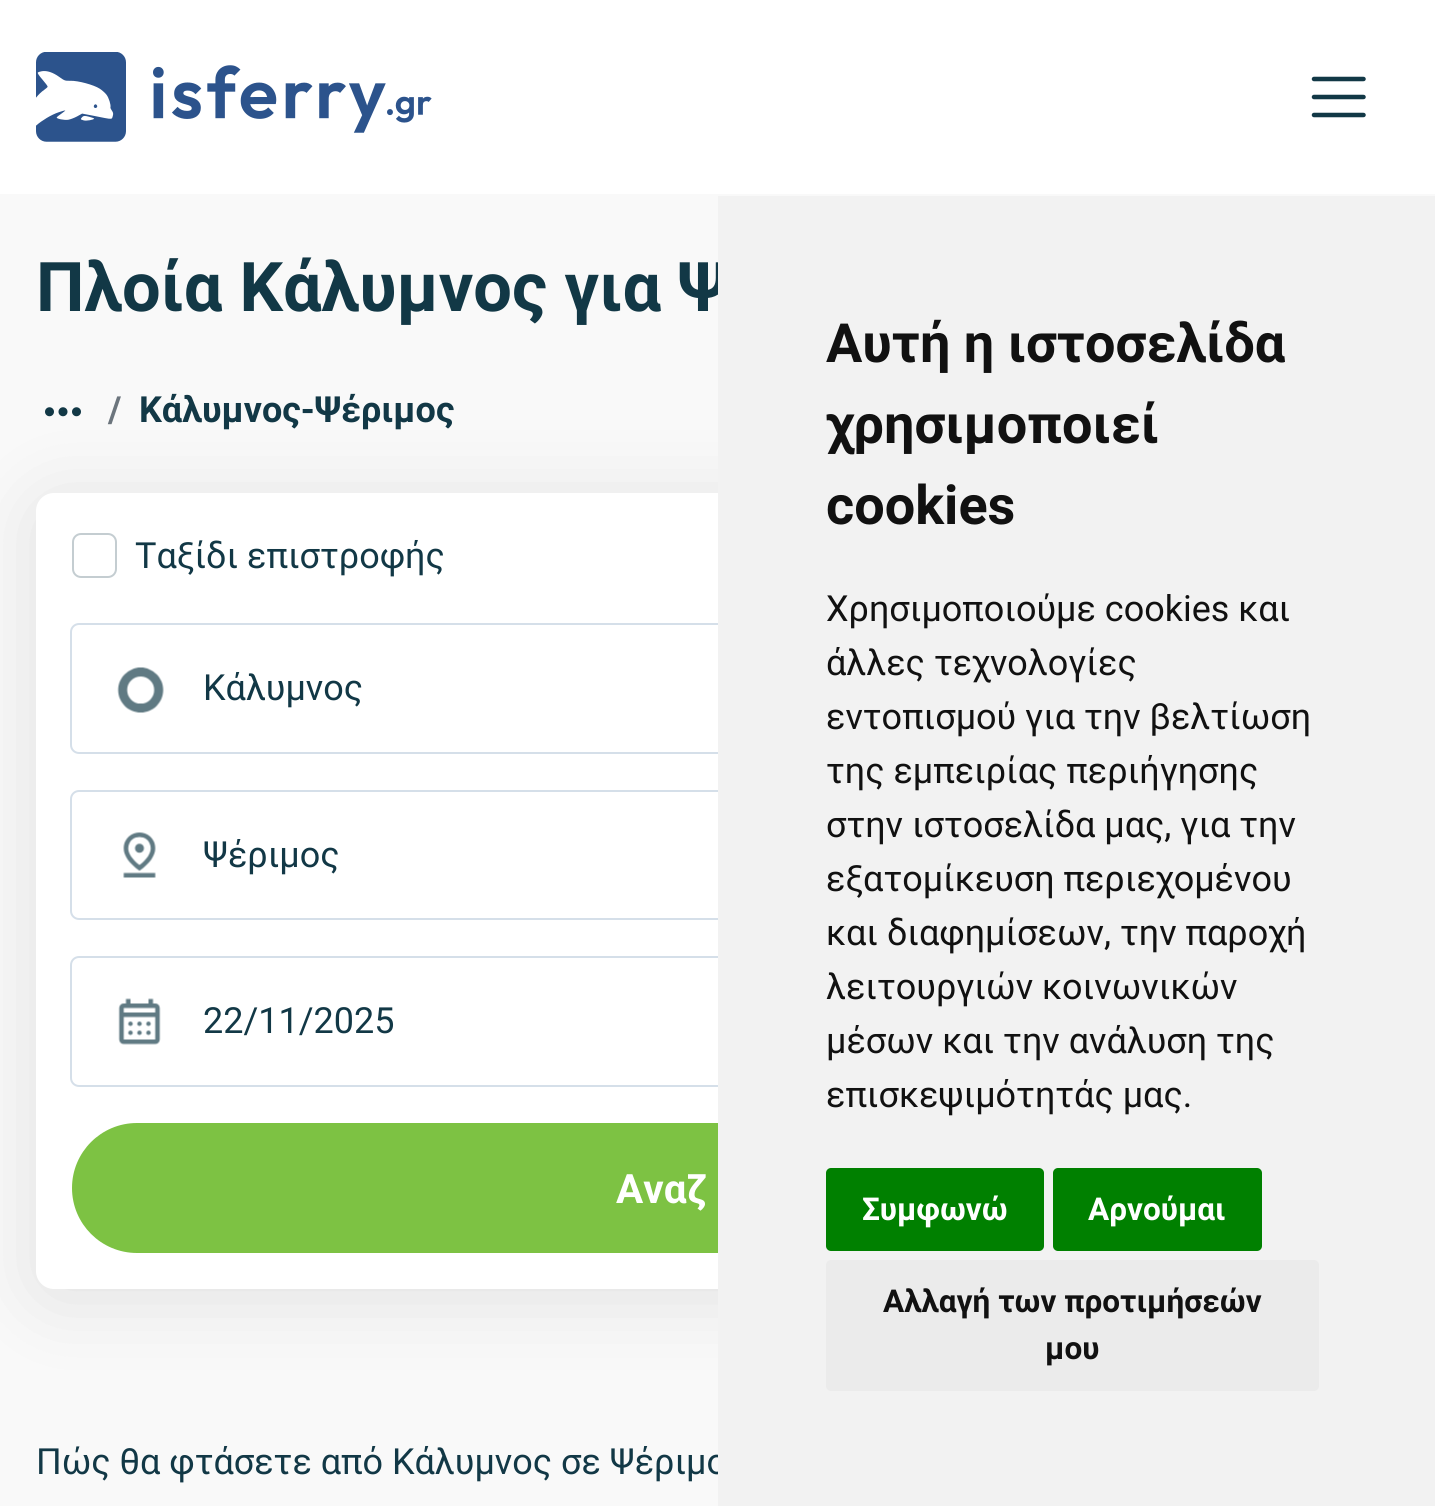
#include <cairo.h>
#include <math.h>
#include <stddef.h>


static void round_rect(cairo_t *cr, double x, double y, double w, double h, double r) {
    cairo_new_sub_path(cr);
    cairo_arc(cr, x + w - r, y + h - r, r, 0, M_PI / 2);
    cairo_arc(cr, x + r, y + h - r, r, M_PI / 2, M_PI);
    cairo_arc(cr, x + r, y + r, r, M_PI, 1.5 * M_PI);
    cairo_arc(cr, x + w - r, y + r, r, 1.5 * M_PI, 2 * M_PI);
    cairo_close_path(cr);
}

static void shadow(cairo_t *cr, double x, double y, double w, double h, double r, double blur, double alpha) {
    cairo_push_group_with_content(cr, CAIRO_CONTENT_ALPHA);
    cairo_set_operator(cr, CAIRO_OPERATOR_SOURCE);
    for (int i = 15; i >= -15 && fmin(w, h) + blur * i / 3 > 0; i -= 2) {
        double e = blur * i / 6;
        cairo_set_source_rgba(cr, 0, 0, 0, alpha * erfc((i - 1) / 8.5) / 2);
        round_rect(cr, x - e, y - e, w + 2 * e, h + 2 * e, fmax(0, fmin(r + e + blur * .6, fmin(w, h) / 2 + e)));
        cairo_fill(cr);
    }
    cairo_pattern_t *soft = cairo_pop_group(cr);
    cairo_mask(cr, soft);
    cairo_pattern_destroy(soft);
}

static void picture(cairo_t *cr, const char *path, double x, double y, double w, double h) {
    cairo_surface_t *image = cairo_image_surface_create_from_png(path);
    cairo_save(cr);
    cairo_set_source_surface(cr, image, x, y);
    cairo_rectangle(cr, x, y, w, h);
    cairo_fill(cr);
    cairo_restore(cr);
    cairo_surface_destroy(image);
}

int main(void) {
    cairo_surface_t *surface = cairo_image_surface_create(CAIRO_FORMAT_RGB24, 1435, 1506);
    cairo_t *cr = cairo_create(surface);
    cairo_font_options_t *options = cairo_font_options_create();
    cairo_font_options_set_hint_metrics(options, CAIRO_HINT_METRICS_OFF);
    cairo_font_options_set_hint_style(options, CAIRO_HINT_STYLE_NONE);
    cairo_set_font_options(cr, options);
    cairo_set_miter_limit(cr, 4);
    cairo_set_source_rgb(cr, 0.973, 0.973, 0.973);
    cairo_paint(cr);
    cairo_set_source_rgb(cr, 1, 1, 1);
    cairo_rectangle(cr, 0, 0, 1435, 194);
    cairo_fill(cr);
    picture(cr, "img1.png", 36, 52, 396, 90);
    cairo_new_path(cr);
    cairo_move_to(cr, 1314, 79);
    cairo_line_to(cr, 1363.5, 79);
    cairo_move_to(cr, 1314, 97);
    cairo_line_to(cr, 1363.5, 97);
    cairo_move_to(cr, 1314, 115);
    cairo_line_to(cr, 1363.5, 115);
    cairo_set_source_rgb(cr, 0.071, 0.22, 0.275);
    cairo_set_line_width(cr, 4.5);
    cairo_set_line_cap(cr, CAIRO_LINE_CAP_ROUND);
    cairo_stroke(cr);
    cairo_select_font_face(cr, "Roboto", CAIRO_FONT_SLANT_NORMAL, CAIRO_FONT_WEIGHT_BOLD);
    cairo_set_font_size(cr, 68.5);
    cairo_move_to(cr, 36, 311);
    cairo_show_text(cr, "Πλοία Κάλυμνος για Ψ");
    picture(cr, "img2.png", 45, 407, 36, 10);
    cairo_set_font_size(cr, 36);
    cairo_set_source_rgb(cr, 0.424, 0.459, 0.49);
    cairo_move_to(cr, 108, 422);
    cairo_show_text(cr, "/");
    cairo_set_source_rgb(cr, 0.071, 0.22, 0.275);
    cairo_move_to(cr, 139, 422);
    cairo_show_text(cr, "Κάλυμνος-Ψέριμος");
    cairo_set_source_rgb(cr, 0, 0, 0);
    shadow(cr, 36, 502, 1364, 796, 18, 39.5, 0.1);
    cairo_set_source_rgb(cr, 1, 1, 1);
    round_rect(cr, 36, 493, 1364, 796, 18);
    cairo_fill(cr);
    round_rect(cr, 73, 534, 43, 43, 8);
    cairo_set_source_rgb(cr, 0.769, 0.804, 0.82);
    cairo_set_line_width(cr, 2);
    cairo_set_line_cap(cr, CAIRO_LINE_CAP_BUTT);
    cairo_stroke(cr);
    cairo_select_font_face(cr, "Roboto", CAIRO_FONT_SLANT_NORMAL, CAIRO_FONT_WEIGHT_NORMAL);
    cairo_set_source_rgb(cr, 0.071, 0.22, 0.275);
    cairo_move_to(cr, 135, 568);
    cairo_show_text(cr, "Ταξίδι επιστροφής");
    round_rect(cr, 71, 624, 1292, 129, 8);
    cairo_set_source_rgb(cr, 0.835, 0.875, 0.914);
    cairo_stroke(cr);
    picture(cr, "img3.png", 117, 667, 47, 46);
    cairo_set_source_rgb(cr, 0.071, 0.22, 0.275);
    cairo_move_to(cr, 203, 700);
    cairo_show_text(cr, "Κάλυμνος");
    round_rect(cr, 71, 791, 1292, 128, 8);
    cairo_set_source_rgb(cr, 0.835, 0.875, 0.914);
    cairo_stroke(cr);
    picture(cr, "img4.png", 123, 832, 33, 46);
    cairo_set_source_rgb(cr, 0.071, 0.22, 0.275);
    cairo_move_to(cr, 203, 867);
    cairo_show_text(cr, "Ψέριμος");
    round_rect(cr, 71, 957, 1292, 129, 8);
    cairo_set_source_rgb(cr, 0.835, 0.875, 0.914);
    cairo_stroke(cr);
    picture(cr, "img5.png", 118, 998, 43, 47);
    cairo_set_source_rgb(cr, 0.071, 0.22, 0.275);
    cairo_move_to(cr, 203, 1033);
    cairo_show_text(cr, "22/11/2025");
    cairo_set_source_rgb(cr, 0.49, 0.761, 0.263);
    round_rect(cr, 72, 1123, 1292, 130, 65);
    cairo_fill(cr);
    cairo_select_font_face(cr, "Roboto", CAIRO_FONT_SLANT_NORMAL, CAIRO_FONT_WEIGHT_BOLD);
    cairo_set_font_size(cr, 40.5);
    cairo_set_source_rgb(cr, 1, 1, 1);
    cairo_move_to(cr, 616, 1203);
    cairo_show_text(cr, "Αναζ");
    cairo_select_font_face(cr, "Roboto", CAIRO_FONT_SLANT_NORMAL, CAIRO_FONT_WEIGHT_NORMAL);
    cairo_set_font_size(cr, 36);
    cairo_set_source_rgb(cr, 0.071, 0.22, 0.275);
    cairo_move_to(cr, 36, 1474);
    cairo_show_text(cr, "Πώς θα φτάσετε από Κάλυμνος σε Ψέριμο");
    cairo_set_source_rgb(cr, 0.949, 0.949, 0.949);
    cairo_rectangle(cr, 718, 196, 717, 1310);
    cairo_fill(cr);
    cairo_select_font_face(cr, "Roboto", CAIRO_FONT_SLANT_NORMAL, CAIRO_FONT_WEIGHT_BOLD);
    cairo_set_font_size(cr, 54);
    cairo_set_source_rgb(cr, 0.067, 0.067, 0.067);
    cairo_move_to(cr, 826, 362);
    cairo_show_text(cr, "Αυτή η ιστοσελίδα");
    cairo_move_to(cr, 826, 443);
    cairo_show_text(cr, "χρησιμοποιεί");
    cairo_move_to(cr, 826, 524);
    cairo_show_text(cr, "cookies");
    cairo_select_font_face(cr, "Roboto", CAIRO_FONT_SLANT_NORMAL, CAIRO_FONT_WEIGHT_NORMAL);
    cairo_set_font_size(cr, 36);
    cairo_move_to(cr, 826, 621);
    cairo_show_text(cr, "Χρησιμοποιούμε cookies και");
    cairo_move_to(cr, 826, 675);
    cairo_show_text(cr, "άλλες τεχνολογίες");
    cairo_move_to(cr, 826, 729);
    cairo_show_text(cr, "εντοπισμού για την βελτίωση");
    cairo_move_to(cr, 826, 783);
    cairo_show_text(cr, "της εμπειρίας περιήγησης");
    cairo_move_to(cr, 826, 837);
    cairo_show_text(cr, "στην ιστοσελίδα μας, για την");
    cairo_move_to(cr, 826, 891);
    cairo_show_text(cr, "εξατομίκευση περιεχομένου");
    cairo_move_to(cr, 826, 945);
    cairo_show_text(cr, "και διαφημίσεων, την παροχή");
    cairo_move_to(cr, 826, 999);
    cairo_show_text(cr, "λειτουργιών κοινωνικών");
    cairo_move_to(cr, 826, 1053);
    cairo_show_text(cr, "μέσων και την ανάλυση της");
    cairo_move_to(cr, 826, 1107);
    cairo_show_text(cr, "επισκεψιμότητάς μας.");
    cairo_set_source_rgb(cr, 0, 0.502, 0);
    round_rect(cr, 826, 1168, 218, 83, 5);
    cairo_fill(cr);
    cairo_select_font_face(cr, "Roboto", CAIRO_FONT_SLANT_NORMAL, CAIRO_FONT_WEIGHT_BOLD);
    cairo_set_font_size(cr, 31.5);
    cairo_set_source_rgb(cr, 1, 1, 1);
    cairo_move_to(cr, 862, 1220);
    cairo_show_text(cr, "Συμφωνώ");
    cairo_set_source_rgb(cr, 0, 0.502, 0);
    round_rect(cr, 1053, 1168, 209, 83, 5);
    cairo_fill(cr);
    cairo_set_source_rgb(cr, 1, 1, 1);
    cairo_move_to(cr, 1088, 1220);
    cairo_show_text(cr, "Αρνούμαι");
    cairo_set_source_rgb(cr, 0.918, 0.918, 0.918);
    round_rect(cr, 826, 1260, 493, 131, 5);
    cairo_fill(cr);
    cairo_set_source_rgb(cr, 0.067, 0.067, 0.067);
    cairo_move_to(cr, 883, 1312);
    cairo_show_text(cr, "Αλλαγή των προτιμήσεών");
    cairo_move_to(cr, 1045, 1359);
    cairo_show_text(cr, "μου");
    cairo_surface_write_to_png(surface, "page.png");
    cairo_font_options_destroy(options);
    cairo_destroy(cr);
    cairo_surface_destroy(surface);
    return 0;
}
